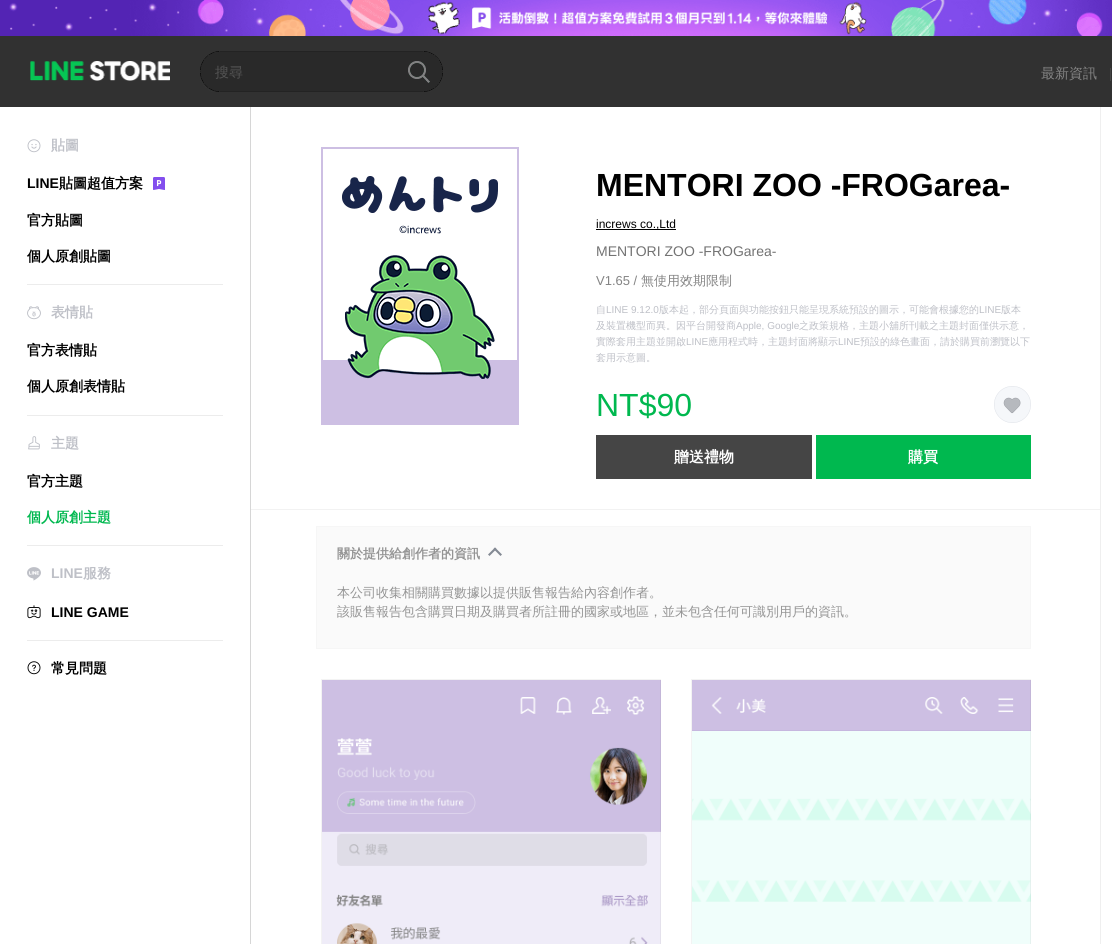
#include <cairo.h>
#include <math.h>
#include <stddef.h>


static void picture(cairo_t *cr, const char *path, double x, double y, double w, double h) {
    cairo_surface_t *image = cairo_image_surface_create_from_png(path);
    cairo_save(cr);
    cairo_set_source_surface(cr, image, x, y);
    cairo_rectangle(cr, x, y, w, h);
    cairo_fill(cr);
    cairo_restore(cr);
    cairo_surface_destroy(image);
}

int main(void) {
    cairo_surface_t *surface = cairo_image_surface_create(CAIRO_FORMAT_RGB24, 1112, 944);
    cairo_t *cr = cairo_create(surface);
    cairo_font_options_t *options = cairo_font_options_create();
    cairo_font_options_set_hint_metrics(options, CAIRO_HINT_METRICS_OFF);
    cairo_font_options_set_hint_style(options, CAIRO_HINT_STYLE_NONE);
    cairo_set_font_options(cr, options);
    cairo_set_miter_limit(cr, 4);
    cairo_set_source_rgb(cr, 1, 1, 1);
    cairo_paint(cr);
    picture(cr, "img1.png", 0, 0, 1112, 36);
    cairo_set_source_rgb(cr, 0.192, 0.192, 0.192);
    cairo_rectangle(cr, 0, 36, 1112, 71);
    cairo_fill(cr);
    picture(cr, "img2.png", 30, 61, 140, 20);
    picture(cr, "img3.png", 200, 51, 243, 41);
    cairo_select_font_face(cr, "WenQuanYi Zen Hei Medium", CAIRO_FONT_SLANT_NORMAL, CAIRO_FONT_WEIGHT_NORMAL);
    cairo_set_font_size(cr, 14);
    cairo_set_source_rgb(cr, 0.329, 0.329, 0.329);
    cairo_move_to(cr, 215, 77);
    cairo_show_text(cr, "搜尋");
    picture(cr, "img4.png", 408, 61, 22, 22);
    cairo_set_source_rgb(cr, 0.518, 0.518, 0.518);
    cairo_move_to(cr, 1041, 78);
    cairo_show_text(cr, "最新資訊");
    cairo_set_source_rgb(cr, 0.267, 0.267, 0.267);
    cairo_rectangle(cr, 1110, 68, 1, 13);
    cairo_fill(cr);
    picture(cr, "img5.png", 27, 139, 14, 14);
    cairo_select_font_face(cr, "WenQuanYi Zen Hei", CAIRO_FONT_SLANT_NORMAL, CAIRO_FONT_WEIGHT_BOLD);
    cairo_set_source_rgb(cr, 0.745, 0.753, 0.78);
    cairo_move_to(cr, 51, 150);
    cairo_show_text(cr, "貼圖");
    cairo_select_font_face(cr, "Liberation Sans", CAIRO_FONT_SLANT_NORMAL, CAIRO_FONT_WEIGHT_BOLD);
    cairo_set_source_rgb(cr, 0, 0, 0);
    cairo_move_to(cr, 27, 188);
    cairo_show_text(cr, "LINE");
    cairo_select_font_face(cr, "WenQuanYi Zen Hei", CAIRO_FONT_SLANT_NORMAL, CAIRO_FONT_WEIGHT_BOLD);
    cairo_move_to(cr, 59, 188);
    cairo_show_text(cr, "貼圖超值方案");
    picture(cr, "img6.png", 153, 177, 12, 13);
    cairo_move_to(cr, 27, 225);
    cairo_show_text(cr, "官方貼圖");
    cairo_move_to(cr, 27, 261);
    cairo_show_text(cr, "個人原創貼圖");
    cairo_set_source_rgb(cr, 0.922, 0.922, 0.922);
    cairo_rectangle(cr, 27, 284, 196, 1);
    cairo_fill(cr);
    picture(cr, "img7.png", 27, 306, 14, 14);
    cairo_set_source_rgb(cr, 0.745, 0.753, 0.78);
    cairo_move_to(cr, 51, 317);
    cairo_show_text(cr, "表情貼");
    cairo_set_source_rgb(cr, 0, 0, 0);
    cairo_move_to(cr, 27, 355);
    cairo_show_text(cr, "官方表情貼");
    cairo_move_to(cr, 27, 391);
    cairo_show_text(cr, "個人原創表情貼");
    cairo_set_source_rgb(cr, 0.922, 0.922, 0.922);
    cairo_rectangle(cr, 27, 415, 196, 1);
    cairo_fill(cr);
    picture(cr, "img8.png", 28, 436, 12, 14);
    cairo_set_source_rgb(cr, 0.745, 0.753, 0.78);
    cairo_move_to(cr, 51, 448);
    cairo_show_text(cr, "主題");
    cairo_set_source_rgb(cr, 0, 0, 0);
    cairo_move_to(cr, 27, 486);
    cairo_show_text(cr, "官方主題");
    cairo_set_source_rgb(cr, 0, 0.722, 0.31);
    cairo_move_to(cr, 27, 522);
    cairo_show_text(cr, "個人原創主題");
    cairo_set_source_rgb(cr, 0.922, 0.922, 0.922);
    cairo_rectangle(cr, 27, 545, 196, 1);
    cairo_fill(cr);
    picture(cr, "img9.png", 27, 567, 14, 14);
    cairo_select_font_face(cr, "Liberation Sans", CAIRO_FONT_SLANT_NORMAL, CAIRO_FONT_WEIGHT_BOLD);
    cairo_set_source_rgb(cr, 0.745, 0.753, 0.78);
    cairo_move_to(cr, 51, 578);
    cairo_show_text(cr, "LINE");
    cairo_select_font_face(cr, "WenQuanYi Zen Hei", CAIRO_FONT_SLANT_NORMAL, CAIRO_FONT_WEIGHT_BOLD);
    cairo_move_to(cr, 83, 578);
    cairo_show_text(cr, "服務");
    picture(cr, "img10.png", 27, 605, 14, 14);
    cairo_select_font_face(cr, "Liberation Sans", CAIRO_FONT_SLANT_NORMAL, CAIRO_FONT_WEIGHT_BOLD);
    cairo_set_source_rgb(cr, 0, 0, 0);
    cairo_move_to(cr, 51, 617);
    cairo_show_text(cr, "LINE GAME");
    cairo_set_source_rgb(cr, 0.922, 0.922, 0.922);
    cairo_rectangle(cr, 27, 640, 196, 1);
    cairo_fill(cr);
    picture(cr, "img11.png", 27, 661, 14, 14);
    cairo_select_font_face(cr, "WenQuanYi Zen Hei", CAIRO_FONT_SLANT_NORMAL, CAIRO_FONT_WEIGHT_BOLD);
    cairo_set_source_rgb(cr, 0, 0, 0);
    cairo_move_to(cr, 51, 673);
    cairo_show_text(cr, "常見問題");
    cairo_set_source_rgb(cr, 0.839, 0.839, 0.839);
    cairo_rectangle(cr, 250, 107, 1, 837);
    cairo_fill(cr);
    picture(cr, "img12.png", 321, 147, 198, 278);
    cairo_select_font_face(cr, "Liberation Sans", CAIRO_FONT_SLANT_NORMAL, CAIRO_FONT_WEIGHT_BOLD);
    cairo_set_font_size(cr, 32);
    cairo_set_source_rgb(cr, 0, 0, 0);
    cairo_move_to(cr, 596, 196);
    cairo_show_text(cr, "MENTORI ZOO -FROGarea-");
    cairo_rectangle(cr, 596, 229, 80, 1);
    cairo_fill(cr);
    cairo_select_font_face(cr, "Liberation Sans", CAIRO_FONT_SLANT_NORMAL, CAIRO_FONT_WEIGHT_NORMAL);
    cairo_set_font_size(cr, 12);
    cairo_move_to(cr, 596, 228);
    cairo_show_text(cr, "increws co.,Ltd");
    cairo_set_font_size(cr, 14);
    cairo_set_source_rgb(cr, 0.451, 0.451, 0.451);
    cairo_move_to(cr, 596, 256);
    cairo_show_text(cr, "MENTORI ZOO -FROGarea-");
    cairo_set_font_size(cr, 13);
    cairo_set_source_rgb(cr, 0.518, 0.518, 0.518);
    cairo_move_to(cr, 596, 285);
    cairo_show_text(cr, "V1.65 /");
    cairo_select_font_face(cr, "WenQuanYi Zen Hei Medium", CAIRO_FONT_SLANT_NORMAL, CAIRO_FONT_WEIGHT_NORMAL);
    cairo_move_to(cr, 641, 285);
    cairo_show_text(cr, "無使用效期限制");
    cairo_set_font_size(cr, 10);
    cairo_set_source_rgb(cr, 0.745, 0.753, 0.78);
    cairo_move_to(cr, 596, 313);
    cairo_show_text(cr, "自");
    cairo_select_font_face(cr, "Liberation Sans", CAIRO_FONT_SLANT_NORMAL, CAIRO_FONT_WEIGHT_NORMAL);
    cairo_move_to(cr, 606, 313);
    cairo_show_text(cr, "LINE 9.12.0");
    cairo_select_font_face(cr, "WenQuanYi Zen Hei Medium", CAIRO_FONT_SLANT_NORMAL, CAIRO_FONT_WEIGHT_NORMAL);
    cairo_move_to(cr, 659, 313);
    cairo_show_text(cr, "版本起，部分頁面與功能按鈕只能呈現系統預設的圖示，可能會根據您的");
    cairo_select_font_face(cr, "Liberation Sans", CAIRO_FONT_SLANT_NORMAL, CAIRO_FONT_WEIGHT_NORMAL);
    cairo_move_to(cr, 979, 313);
    cairo_show_text(cr, "LINE");
    cairo_select_font_face(cr, "WenQuanYi Zen Hei Medium", CAIRO_FONT_SLANT_NORMAL, CAIRO_FONT_WEIGHT_NORMAL);
    cairo_move_to(cr, 1001, 313);
    cairo_show_text(cr, "版本");
    cairo_move_to(cr, 596, 329);
    cairo_show_text(cr, "及裝置機型而異。因平台開發商");
    cairo_select_font_face(cr, "Liberation Sans", CAIRO_FONT_SLANT_NORMAL, CAIRO_FONT_WEIGHT_NORMAL);
    cairo_move_to(cr, 736, 329);
    cairo_show_text(cr, "Apple, Google");
    cairo_select_font_face(cr, "WenQuanYi Zen Hei Medium", CAIRO_FONT_SLANT_NORMAL, CAIRO_FONT_WEIGHT_NORMAL);
    cairo_move_to(cr, 799, 329);
    cairo_show_text(cr, "之政策規格，主題小舖所刊載之主題封面僅供示意，");
    cairo_move_to(cr, 596, 345);
    cairo_show_text(cr, "實際套用主題並開啟");
    cairo_select_font_face(cr, "Liberation Sans", CAIRO_FONT_SLANT_NORMAL, CAIRO_FONT_WEIGHT_NORMAL);
    cairo_move_to(cr, 686, 345);
    cairo_show_text(cr, "LINE");
    cairo_select_font_face(cr, "WenQuanYi Zen Hei Medium", CAIRO_FONT_SLANT_NORMAL, CAIRO_FONT_WEIGHT_NORMAL);
    cairo_move_to(cr, 708, 345);
    cairo_show_text(cr, "應用程式時，主題封面將顯示");
    cairo_select_font_face(cr, "Liberation Sans", CAIRO_FONT_SLANT_NORMAL, CAIRO_FONT_WEIGHT_NORMAL);
    cairo_move_to(cr, 838, 345);
    cairo_show_text(cr, "LINE");
    cairo_select_font_face(cr, "WenQuanYi Zen Hei Medium", CAIRO_FONT_SLANT_NORMAL, CAIRO_FONT_WEIGHT_NORMAL);
    cairo_move_to(cr, 860, 345);
    cairo_show_text(cr, "預設的綠色畫面，請於購買前瀏覽以下");
    cairo_move_to(cr, 596, 361);
    cairo_show_text(cr, "套用示意圖。");
    cairo_select_font_face(cr, "Liberation Sans", CAIRO_FONT_SLANT_NORMAL, CAIRO_FONT_WEIGHT_NORMAL);
    cairo_set_font_size(cr, 32);
    cairo_set_source_rgb(cr, 0, 0.722, 0.31);
    cairo_move_to(cr, 596, 416);
    cairo_show_text(cr, "NT$90");
    picture(cr, "img13.png", 994, 386, 37, 37);
    cairo_set_source_rgb(cr, 0.271, 0.271, 0.271);
    cairo_rectangle(cr, 596, 435, 216, 44);
    cairo_fill(cr);
    cairo_select_font_face(cr, "WenQuanYi Zen Hei", CAIRO_FONT_SLANT_NORMAL, CAIRO_FONT_WEIGHT_BOLD);
    cairo_set_font_size(cr, 15);
    cairo_set_source_rgb(cr, 1, 1, 1);
    cairo_move_to(cr, 674, 462);
    cairo_show_text(cr, "贈送禮物");
    cairo_set_source_rgb(cr, 0, 0.722, 0.31);
    cairo_rectangle(cr, 816, 435, 215, 44);
    cairo_fill(cr);
    cairo_set_source_rgb(cr, 1, 1, 1);
    cairo_move_to(cr, 908, 462);
    cairo_show_text(cr, "購買");
    cairo_set_source_rgb(cr, 0.949, 0.949, 0.949);
    cairo_rectangle(cr, 251, 509, 850, 1);
    cairo_fill(cr);
    cairo_set_source_rgb(cr, 0.937, 0.937, 0.937);
    cairo_rectangle(cr, 1100, 107, 1, 837);
    cairo_fill(cr);
    cairo_set_source_rgb(cr, 0.98, 0.98, 0.98);
    cairo_rectangle(cr, 316.5, 526.5, 714, 122);
    cairo_fill_preserve(cr);
    cairo_set_source_rgb(cr, 0.961, 0.961, 0.961);
    cairo_set_line_width(cr, 1);
    cairo_stroke(cr);
    cairo_set_font_size(cr, 13);
    cairo_set_source_rgb(cr, 0.58, 0.58, 0.58);
    cairo_move_to(cr, 337, 558);
    cairo_show_text(cr, "關於提供給創作者的資訊");
    cairo_set_source_rgb(cr, 0.518, 0.541, 0.58);
    cairo_new_path(cr);
    cairo_move_to(cr, 488, 554.5);
    cairo_line_to(cr, 495, 547.5);
    cairo_line_to(cr, 496.5, 549);
    cairo_line_to(cr, 489.5, 556);
    cairo_close_path(cr);
    cairo_fill(cr);
    cairo_new_path(cr);
    cairo_move_to(cr, 493.5, 549);
    cairo_line_to(cr, 495, 547.5);
    cairo_line_to(cr, 502, 554.5);
    cairo_line_to(cr, 500.5, 556);
    cairo_close_path(cr);
    cairo_fill(cr);
    cairo_select_font_face(cr, "WenQuanYi Zen Hei Medium", CAIRO_FONT_SLANT_NORMAL, CAIRO_FONT_WEIGHT_NORMAL);
    cairo_set_source_rgb(cr, 0.58, 0.58, 0.58);
    cairo_move_to(cr, 337, 597);
    cairo_show_text(cr, "本公司收集相關購買數據以提供販售報告給內容創作者。");
    cairo_move_to(cr, 337, 616);
    cairo_show_text(cr, "該販售報告包含購買日期及購買者所註冊的國家或地區，並未包含任何可識別用戶的資訊。");
    picture(cr, "img14.png", 322, 680, 339, 264);
    cairo_rectangle(cr, 321.5, 679.5, 339, 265);
    cairo_set_source_rgba(cr, 0, 0, 0, 0.05);
    cairo_stroke(cr);
    picture(cr, "img15.png", 692, 680, 339, 264);
    cairo_rectangle(cr, 691.5, 679.5, 339, 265);
    cairo_stroke(cr);
    cairo_surface_write_to_png(surface, "page.png");
    cairo_font_options_destroy(options);
    cairo_destroy(cr);
    cairo_surface_destroy(surface);
    return 0;
}
